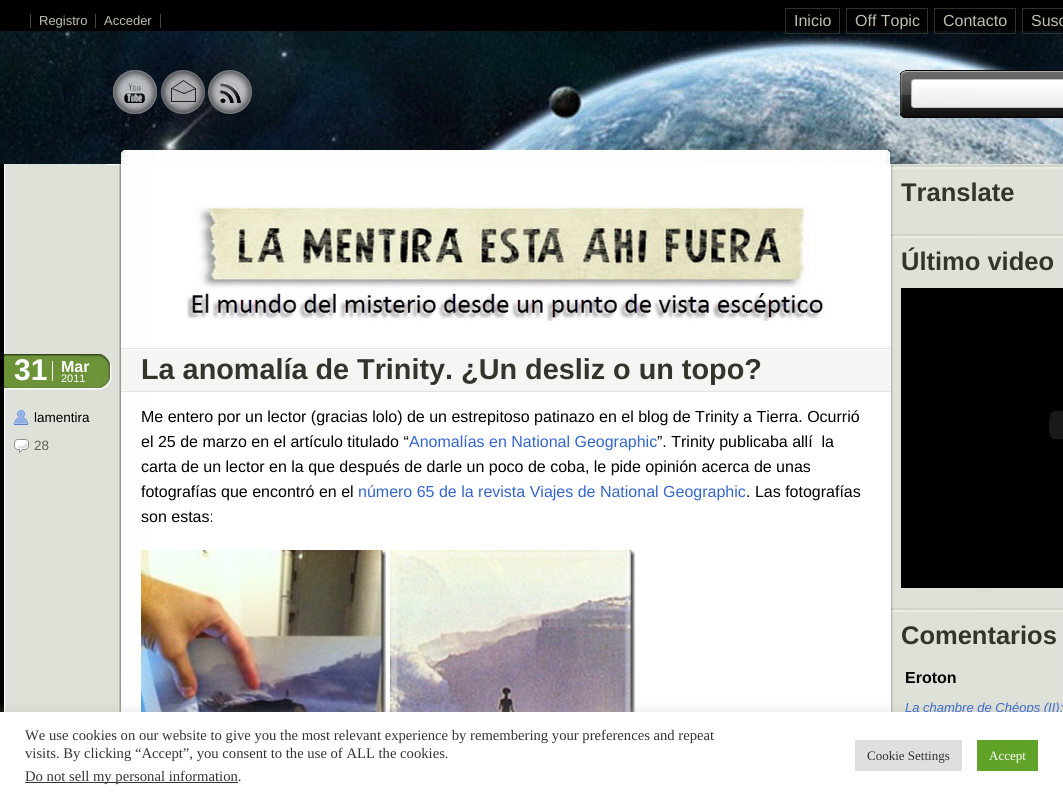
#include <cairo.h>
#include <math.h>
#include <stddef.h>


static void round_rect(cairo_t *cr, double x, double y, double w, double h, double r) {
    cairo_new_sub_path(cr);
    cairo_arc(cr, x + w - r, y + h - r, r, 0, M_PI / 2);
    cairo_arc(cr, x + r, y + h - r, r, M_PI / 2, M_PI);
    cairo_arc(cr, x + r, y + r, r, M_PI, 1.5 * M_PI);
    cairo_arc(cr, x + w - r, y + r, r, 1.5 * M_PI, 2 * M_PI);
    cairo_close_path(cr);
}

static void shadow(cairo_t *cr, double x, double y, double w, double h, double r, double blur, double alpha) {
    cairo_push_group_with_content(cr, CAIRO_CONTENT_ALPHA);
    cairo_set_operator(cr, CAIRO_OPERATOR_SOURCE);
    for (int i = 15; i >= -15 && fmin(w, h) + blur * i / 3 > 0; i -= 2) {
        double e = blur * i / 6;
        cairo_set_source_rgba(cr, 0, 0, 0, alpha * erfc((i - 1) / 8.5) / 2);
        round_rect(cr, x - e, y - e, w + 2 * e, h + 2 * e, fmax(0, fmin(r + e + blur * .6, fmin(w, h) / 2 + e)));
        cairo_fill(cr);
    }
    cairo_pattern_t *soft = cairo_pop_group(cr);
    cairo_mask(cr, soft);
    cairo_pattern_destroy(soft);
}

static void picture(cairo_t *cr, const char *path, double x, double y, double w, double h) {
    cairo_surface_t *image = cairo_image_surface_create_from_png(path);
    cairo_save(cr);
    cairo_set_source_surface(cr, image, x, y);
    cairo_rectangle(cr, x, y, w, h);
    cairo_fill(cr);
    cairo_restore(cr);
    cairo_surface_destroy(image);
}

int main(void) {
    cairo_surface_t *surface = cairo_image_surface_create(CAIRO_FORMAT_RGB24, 1063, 799);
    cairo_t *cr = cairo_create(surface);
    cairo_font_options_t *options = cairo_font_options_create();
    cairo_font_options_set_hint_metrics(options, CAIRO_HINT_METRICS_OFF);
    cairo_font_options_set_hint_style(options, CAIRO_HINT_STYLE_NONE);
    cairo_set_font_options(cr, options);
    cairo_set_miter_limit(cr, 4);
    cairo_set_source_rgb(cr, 0, 0, 0);
    cairo_paint(cr);
    picture(cr, "img1.png", 0, 31, 1063, 134);
    cairo_set_source_rgb(cr, 0.275, 0.29, 0.231);
    cairo_rectangle(cr, 30, 14, 1, 14);
    cairo_fill(cr);
    cairo_rectangle(cr, 95, 14, 1, 14);
    cairo_fill(cr);
    cairo_select_font_face(cr, "Liberation Sans", CAIRO_FONT_SLANT_NORMAL, CAIRO_FONT_WEIGHT_NORMAL);
    cairo_set_font_size(cr, 13);
    cairo_set_source_rgb(cr, 0.741, 0.757, 0.686);
    cairo_move_to(cr, 39, 25);
    cairo_show_text(cr, "Registro");
    cairo_set_source_rgb(cr, 0.275, 0.29, 0.231);
    cairo_rectangle(cr, 160, 14, 1, 14);
    cairo_fill(cr);
    cairo_set_source_rgb(cr, 0.741, 0.757, 0.686);
    cairo_move_to(cr, 104, 25);
    cairo_show_text(cr, "Acceder");
    cairo_rectangle(cr, 785.5, 8.5, 54, 25);
    cairo_set_source_rgb(cr, 0.184, 0.188, 0.157);
    cairo_set_line_width(cr, 1);
    cairo_stroke(cr);
    cairo_set_font_size(cr, 16);
    cairo_set_source_rgb(cr, 0.741, 0.757, 0.686);
    cairo_move_to(cr, 794, 26);
    cairo_show_text(cr, "Inicio");
    cairo_rectangle(cr, 846.5, 8.5, 81, 25);
    cairo_set_source_rgb(cr, 0.184, 0.188, 0.157);
    cairo_stroke(cr);
    cairo_set_source_rgb(cr, 0.741, 0.757, 0.686);
    cairo_move_to(cr, 855, 26);
    cairo_show_text(cr, "Off Topic");
    cairo_rectangle(cr, 934.5, 8.5, 81, 25);
    cairo_set_source_rgb(cr, 0.184, 0.188, 0.157);
    cairo_stroke(cr);
    cairo_set_source_rgb(cr, 0.741, 0.757, 0.686);
    cairo_move_to(cr, 943, 26);
    cairo_show_text(cr, "Contacto");
    cairo_rectangle(cr, 1022.5, 8.5, 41, 25);
    cairo_set_source_rgb(cr, 0.184, 0.188, 0.157);
    cairo_stroke(cr);
    cairo_set_source_rgb(cr, 0.741, 0.757, 0.686);
    cairo_move_to(cr, 1031, 26);
    cairo_show_text(cr, "Susc");
    picture(cr, "img2.png", 113, 70, 44, 44);
    picture(cr, "img3.png", 161, 70, 44, 44);
    picture(cr, "img4.png", 208, 70, 44, 44);
    picture(cr, "img5.png", 900, 70, 163, 48);
    picture(cr, "img6.png", 0, 165, 1063, 547);
    picture(cr, "img7.png", 182, 204, 647, 117);
    picture(cr, "img8.png", 4, 354, 108, 36);
    cairo_set_source_rgb(cr, 1, 1, 1);
    cairo_rectangle(cr, 52, 361, 1, 20);
    cairo_fill(cr);
    cairo_select_font_face(cr, "Liberation Sans", CAIRO_FONT_SLANT_NORMAL, CAIRO_FONT_WEIGHT_BOLD);
    cairo_set_font_size(cr, 30);
    cairo_move_to(cr, 14, 380);
    cairo_show_text(cr, "31");
    cairo_set_font_size(cr, 16);
    cairo_move_to(cr, 61, 372);
    cairo_show_text(cr, "Mar");
    cairo_select_font_face(cr, "Liberation Sans", CAIRO_FONT_SLANT_NORMAL, CAIRO_FONT_WEIGHT_NORMAL);
    cairo_set_font_size(cr, 11);
    cairo_move_to(cr, 61, 382);
    cairo_show_text(cr, "2011");
    picture(cr, "img9.png", 14, 410, 16, 15);
    cairo_set_font_size(cr, 13.5);
    cairo_set_source_rgb(cr, 0, 0, 0);
    cairo_move_to(cr, 34, 422);
    cairo_show_text(cr, "lamentira");
    picture(cr, "img10.png", 14, 438, 16, 15);
    cairo_set_source_rgb(cr, 0.38, 0.373, 0.345);
    cairo_move_to(cr, 34, 450);
    cairo_show_text(cr, "28");
    cairo_set_source_rgb(cr, 0.957, 0.961, 0.953);
    cairo_rectangle(cr, 121, 350, 770, 41);
    cairo_fill(cr);
    picture(cr, "img11.png", 121, 348, 770, 2);
    cairo_set_source_rgb(cr, 0.886, 0.894, 0.878);
    cairo_rectangle(cr, 121, 391, 770, 1);
    cairo_fill(cr);
    cairo_select_font_face(cr, "Liberation Sans", CAIRO_FONT_SLANT_NORMAL, CAIRO_FONT_WEIGHT_BOLD);
    cairo_set_font_size(cr, 28.8);
    cairo_set_source_rgb(cr, 0.2, 0.208, 0.173);
    cairo_move_to(cr, 141, 379);
    cairo_show_text(cr, "La anomalía de Trinity. ¿Un desliz o un topo?");
    cairo_select_font_face(cr, "Liberation Sans", CAIRO_FONT_SLANT_NORMAL, CAIRO_FONT_WEIGHT_NORMAL);
    cairo_set_font_size(cr, 16);
    cairo_set_source_rgb(cr, 0, 0, 0);
    cairo_move_to(cr, 141, 422);
    cairo_show_text(cr, "Me entero por un lector (gracias lolo) de un estrepitoso patinazo en el blog de Trinity a Tierra. Ocurrió");
    cairo_move_to(cr, 141, 447);
    cairo_show_text(cr, "el 25 de marzo en el artículo titulado “");
    cairo_set_source_rgb(cr, 0.2, 0.4, 0.8);
    cairo_move_to(cr, 409, 447);
    cairo_show_text(cr, "Anomalías en National Geographic");
    cairo_set_source_rgb(cr, 0, 0, 0);
    cairo_move_to(cr, 657, 447);
    cairo_show_text(cr, "”. Trinity publicaba allí  la");
    cairo_move_to(cr, 141, 472);
    cairo_show_text(cr, "carta de un lector en la que después de darle un poco de coba, le pide opinión acerca de unas");
    cairo_move_to(cr, 141, 497);
    cairo_show_text(cr, "fotografías que encontró en el");
    cairo_set_source_rgb(cr, 0.2, 0.4, 0.8);
    cairo_move_to(cr, 358, 497);
    cairo_show_text(cr, "número 65 de la revista Viajes de National Geographic");
    cairo_set_source_rgb(cr, 0, 0, 0);
    cairo_move_to(cr, 746, 497);
    cairo_show_text(cr, ". Las fotografías");
    cairo_move_to(cr, 141, 522);
    cairo_show_text(cr, "son estas:");
    picture(cr, "img12.png", 141, 550, 245, 162);
    picture(cr, "img13.png", 390, 550, 245, 162);
    picture(cr, "img14.png", 891, 165, 172, 4);
    cairo_select_font_face(cr, "Liberation Sans", CAIRO_FONT_SLANT_NORMAL, CAIRO_FONT_WEIGHT_BOLD);
    cairo_set_font_size(cr, 25.5);
    cairo_set_source_rgb(cr, 0.2, 0.208, 0.173);
    cairo_move_to(cr, 901, 201);
    cairo_show_text(cr, "Translate");
    picture(cr, "img14.png", 891, 234, 172, 4);
    cairo_move_to(cr, 901, 270);
    cairo_show_text(cr, "Último video");
    cairo_set_source_rgb(cr, 0, 0, 0);
    cairo_rectangle(cr, 901, 288, 162, 300);
    cairo_fill(cr);
    picture(cr, "img15.png", 1049, 410, 14, 30);
    picture(cr, "img14.png", 891, 608, 172, 4);
    cairo_set_source_rgb(cr, 0.2, 0.208, 0.173);
    cairo_move_to(cr, 901, 644);
    cairo_show_text(cr, "Comentarios");
    cairo_set_font_size(cr, 16);
    cairo_set_source_rgb(cr, 0, 0, 0);
    cairo_move_to(cr, 905, 683);
    cairo_show_text(cr, "Eroton");
    cairo_select_font_face(cr, "Liberation Sans", CAIRO_FONT_SLANT_ITALIC, CAIRO_FONT_WEIGHT_NORMAL);
    cairo_set_font_size(cr, 13);
    cairo_set_source_rgb(cr, 0.2, 0.4, 0.8);
    cairo_move_to(cr, 905, 712);
    cairo_show_text(cr, "La chambre de Chéops (II):");
    cairo_set_source_rgb(cr, 0.675, 0.671, 0.671);
    shadow(cr, 0, 711, 1063, 87, 0, 5, 0.3);
    cairo_set_source_rgb(cr, 1, 1, 1);
    cairo_rectangle(cr, 0, 712, 1063, 87);
    cairo_fill(cr);
    cairo_select_font_face(cr, "Liberation Serif", CAIRO_FONT_SLANT_NORMAL, CAIRO_FONT_WEIGHT_NORMAL);
    cairo_set_font_size(cr, 14.65);
    cairo_set_source_rgb(cr, 0.2, 0.2, 0.2);
    cairo_move_to(cr, 25, 740);
    cairo_show_text(cr, "We use cookies on our website to give you the most relevant experience by remembering your preferences and repeat");
    cairo_move_to(cr, 25, 758);
    cairo_show_text(cr, "visits. By clicking “Accept”, you consent to the use of ALL the cookies.");
    cairo_rectangle(cr, 25, 782, 213, 1);
    cairo_fill(cr);
    cairo_move_to(cr, 25, 781);
    cairo_show_text(cr, "Do not sell my personal information.");
    cairo_set_source_rgb(cr, 0.871, 0.875, 0.878);
    cairo_rectangle(cr, 855, 740, 107, 31);
    cairo_fill(cr);
    cairo_set_font_size(cr, 13);
    cairo_set_source_rgb(cr, 0.2, 0.2, 0.2);
    cairo_move_to(cr, 867, 760);
    cairo_show_text(cr, "Cookie Settings");
    cairo_set_source_rgb(cr, 0.38, 0.635, 0.161);
    cairo_rectangle(cr, 977, 740, 61, 31);
    cairo_fill(cr);
    cairo_set_source_rgb(cr, 1, 1, 1);
    cairo_move_to(cr, 989, 760);
    cairo_show_text(cr, "Accept");
    cairo_surface_write_to_png(surface, "page.png");
    cairo_font_options_destroy(options);
    cairo_destroy(cr);
    cairo_surface_destroy(surface);
    return 0;
}
